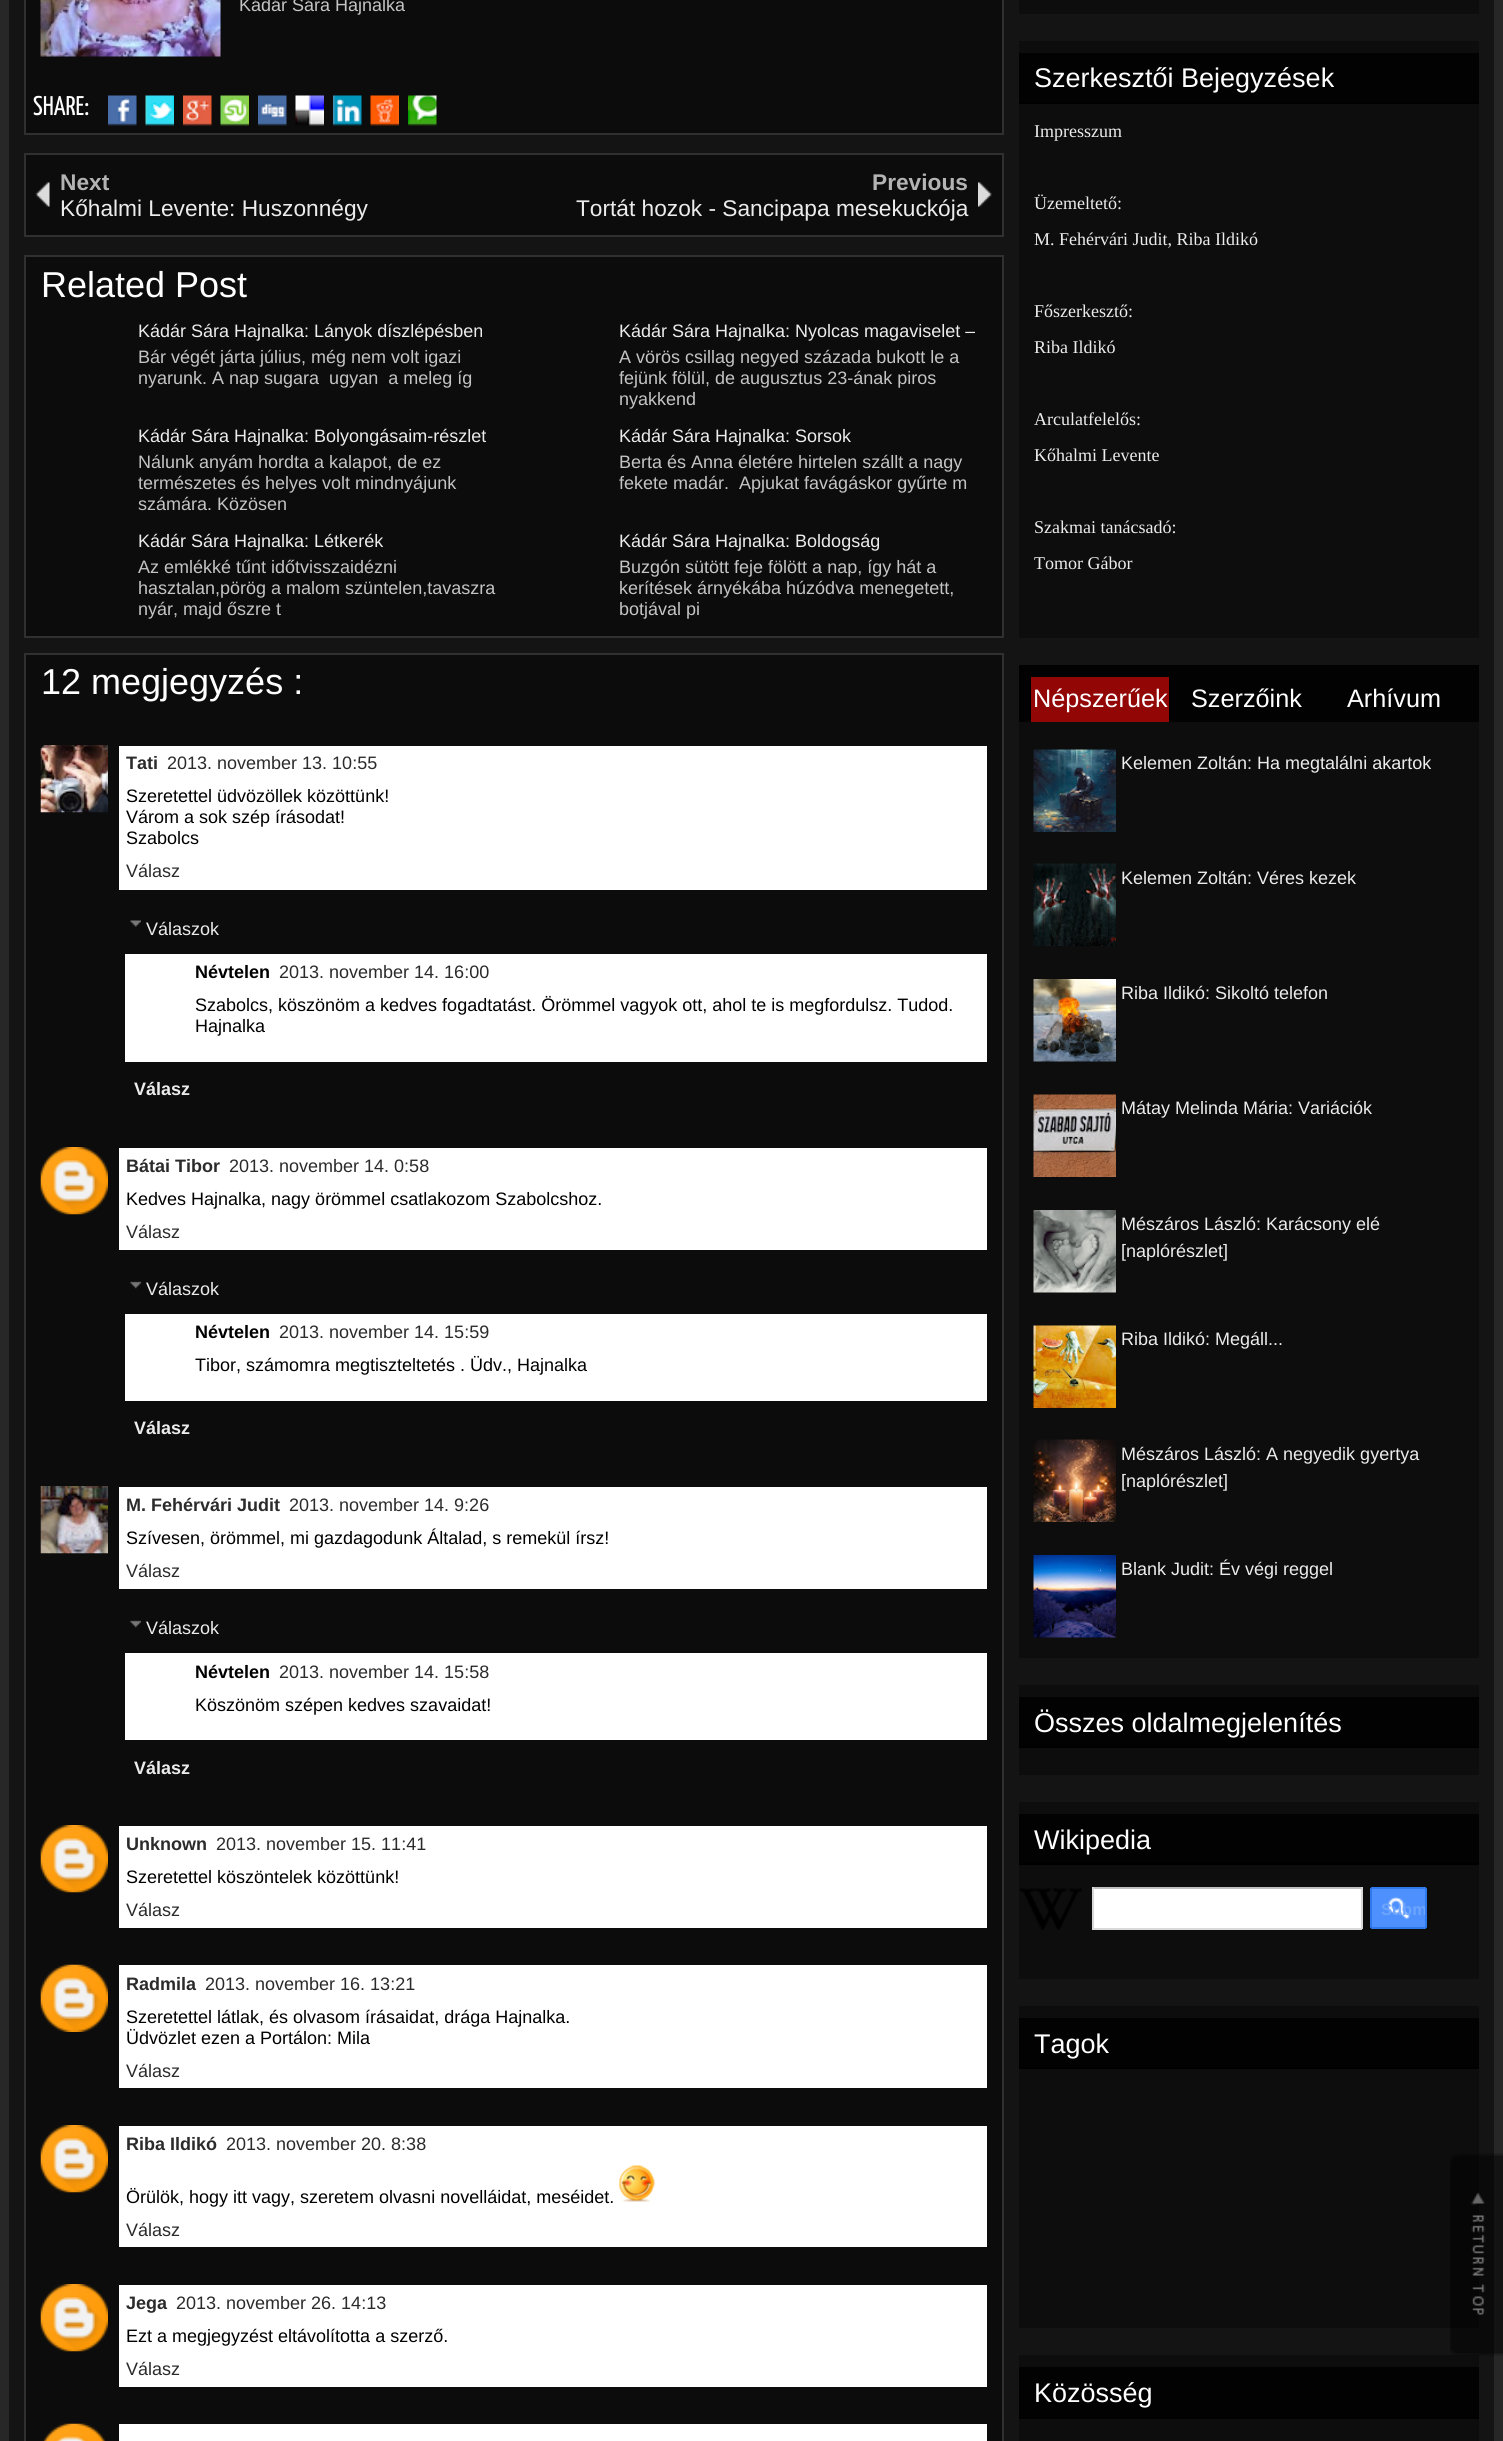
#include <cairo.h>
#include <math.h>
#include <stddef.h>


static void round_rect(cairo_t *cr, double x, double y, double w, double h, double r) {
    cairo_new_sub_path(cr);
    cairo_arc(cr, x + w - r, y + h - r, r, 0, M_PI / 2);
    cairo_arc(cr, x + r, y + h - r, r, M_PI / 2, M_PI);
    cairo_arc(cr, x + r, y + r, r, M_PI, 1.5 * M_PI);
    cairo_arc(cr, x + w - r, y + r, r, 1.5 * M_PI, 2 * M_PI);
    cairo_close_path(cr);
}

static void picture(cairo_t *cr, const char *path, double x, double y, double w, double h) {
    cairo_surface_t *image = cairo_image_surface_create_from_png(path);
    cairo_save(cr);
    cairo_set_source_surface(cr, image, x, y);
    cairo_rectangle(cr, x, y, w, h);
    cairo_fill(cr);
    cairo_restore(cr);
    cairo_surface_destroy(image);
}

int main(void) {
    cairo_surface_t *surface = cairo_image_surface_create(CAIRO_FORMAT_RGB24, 1503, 2441);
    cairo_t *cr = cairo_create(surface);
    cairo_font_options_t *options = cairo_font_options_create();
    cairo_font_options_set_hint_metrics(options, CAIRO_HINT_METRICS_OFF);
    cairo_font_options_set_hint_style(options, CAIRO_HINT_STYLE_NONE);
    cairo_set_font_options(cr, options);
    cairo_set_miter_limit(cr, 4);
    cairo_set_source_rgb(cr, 0.153, 0.153, 0.153);
    cairo_paint(cr);
    cairo_set_source_rgb(cr, 0.082, 0.082, 0.082);
    cairo_rectangle(cr, 9, 0, 1485, 2441);
    cairo_fill(cr);
    cairo_set_source_rgb(cr, 0.047, 0.047, 0.047);
    cairo_rectangle(cr, 25, -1, 978, 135);
    cairo_fill_preserve(cr);
    cairo_set_source_rgb(cr, 0.188, 0.188, 0.188);
    cairo_stroke(cr);
    picture(cr, "img1.png", 40, 0, 181, 57);
    cairo_select_font_face(cr, "Liberation Sans", CAIRO_FONT_SLANT_NORMAL, CAIRO_FONT_WEIGHT_NORMAL);
    cairo_set_font_size(cr, 18);
    cairo_set_source_rgb(cr, 0.769, 0.769, 0.769);
    cairo_move_to(cr, 239, 11);
    cairo_show_text(cr, "Kádár Sára Hajnalka");
    cairo_select_font_face(cr, "Yanone Kaffeesatz ExtraLight", CAIRO_FONT_SLANT_NORMAL, CAIRO_FONT_WEIGHT_NORMAL);
    cairo_set_font_size(cr, 27);
    cairo_set_source_rgb(cr, 1, 1, 1);
    cairo_move_to(cr, 33, 115);
    cairo_show_text(cr, "SHARE:");
    picture(cr, "img2.png", 108, 95, 29, 31);
    picture(cr, "img3.png", 145, 95, 29, 31);
    picture(cr, "img4.png", 183, 95, 29, 31);
    picture(cr, "img5.png", 220, 95, 29, 31);
    picture(cr, "img6.png", 258, 95, 29, 31);
    picture(cr, "img7.png", 295, 95, 29, 31);
    picture(cr, "img8.png", 333, 95, 29, 31);
    picture(cr, "img9.png", 370, 95, 29, 31);
    picture(cr, "img10.png", 408, 95, 29, 31);
    cairo_set_source_rgb(cr, 0.047, 0.047, 0.047);
    cairo_rectangle(cr, 25, 154, 978, 82);
    cairo_fill_preserve(cr);
    cairo_set_source_rgb(cr, 0.188, 0.188, 0.188);
    cairo_stroke(cr);
    picture(cr, "img11.png", 35, 182, 15, 25);
    cairo_select_font_face(cr, "Liberation Sans", CAIRO_FONT_SLANT_NORMAL, CAIRO_FONT_WEIGHT_BOLD);
    cairo_set_font_size(cr, 22.7);
    cairo_set_source_rgb(cr, 0.702, 0.702, 0.702);
    cairo_move_to(cr, 60, 190);
    cairo_show_text(cr, "Next");
    cairo_select_font_face(cr, "Liberation Sans", CAIRO_FONT_SLANT_NORMAL, CAIRO_FONT_WEIGHT_NORMAL);
    cairo_set_source_rgb(cr, 0.922, 0.922, 0.922);
    cairo_move_to(cr, 60, 216);
    cairo_show_text(cr, "Kőhalmi Levente: Huszonnégy");
    picture(cr, "img12.png", 978, 182, 14, 25);
    cairo_select_font_face(cr, "Liberation Sans", CAIRO_FONT_SLANT_NORMAL, CAIRO_FONT_WEIGHT_BOLD);
    cairo_set_source_rgb(cr, 0.702, 0.702, 0.702);
    cairo_move_to(cr, 872, 190);
    cairo_show_text(cr, "Previous");
    cairo_select_font_face(cr, "Liberation Sans", CAIRO_FONT_SLANT_NORMAL, CAIRO_FONT_WEIGHT_NORMAL);
    cairo_set_source_rgb(cr, 0.922, 0.922, 0.922);
    cairo_move_to(cr, 576, 216);
    cairo_show_text(cr, "Tortát hozok - Sancipapa mesekuckója");
    cairo_set_source_rgb(cr, 0.047, 0.047, 0.047);
    cairo_rectangle(cr, 25, 256, 978, 381);
    cairo_fill_preserve(cr);
    cairo_set_source_rgb(cr, 0.188, 0.188, 0.188);
    cairo_stroke(cr);
    cairo_set_font_size(cr, 36);
    cairo_set_source_rgb(cr, 1, 1, 1);
    cairo_move_to(cr, 41, 297);
    cairo_show_text(cr, "Related Post");
    cairo_set_font_size(cr, 18);
    cairo_set_source_rgb(cr, 0.922, 0.922, 0.922);
    cairo_move_to(cr, 138, 337);
    cairo_show_text(cr, "Kádár Sára Hajnalka: Lányok díszlépésben");
    cairo_set_source_rgb(cr, 0.769, 0.769, 0.769);
    cairo_move_to(cr, 138, 363);
    cairo_show_text(cr, "Bár végét járta július, még nem volt igazi");
    cairo_move_to(cr, 138, 384);
    cairo_show_text(cr, "nyarunk. A nap sugara  ugyan  a meleg íg");
    cairo_set_source_rgb(cr, 0.922, 0.922, 0.922);
    cairo_move_to(cr, 619, 337);
    cairo_show_text(cr, "Kádár Sára Hajnalka: Nyolcas magaviselet –");
    cairo_set_source_rgb(cr, 0.769, 0.769, 0.769);
    cairo_move_to(cr, 619, 363);
    cairo_show_text(cr, "A vörös csillag negyed százada bukott le a");
    cairo_move_to(cr, 619, 384);
    cairo_show_text(cr, "fejünk fölül, de augusztus 23-ának piros");
    cairo_move_to(cr, 619, 405);
    cairo_show_text(cr, "nyakkend");
    cairo_set_source_rgb(cr, 0.922, 0.922, 0.922);
    cairo_move_to(cr, 138, 442);
    cairo_show_text(cr, "Kádár Sára Hajnalka: Bolyongásaim-részlet");
    cairo_set_source_rgb(cr, 0.769, 0.769, 0.769);
    cairo_move_to(cr, 138, 468);
    cairo_show_text(cr, "Nálunk anyám hordta a kalapot, de ez");
    cairo_move_to(cr, 138, 489);
    cairo_show_text(cr, "természetes és helyes volt mindnyájunk");
    cairo_move_to(cr, 138, 510);
    cairo_show_text(cr, "számára. Közösen");
    cairo_set_source_rgb(cr, 0.922, 0.922, 0.922);
    cairo_move_to(cr, 619, 442);
    cairo_show_text(cr, "Kádár Sára Hajnalka: Sorsok");
    cairo_set_source_rgb(cr, 0.769, 0.769, 0.769);
    cairo_move_to(cr, 619, 468);
    cairo_show_text(cr, "Berta és Anna életére hirtelen szállt a nagy");
    cairo_move_to(cr, 619, 489);
    cairo_show_text(cr, "fekete madár.  Apjukat favágáskor gyűrte m");
    cairo_set_source_rgb(cr, 0.922, 0.922, 0.922);
    cairo_move_to(cr, 138, 547);
    cairo_show_text(cr, "Kádár Sára Hajnalka: Létkerék");
    cairo_set_source_rgb(cr, 0.769, 0.769, 0.769);
    cairo_move_to(cr, 138, 573);
    cairo_show_text(cr, "Az emlékké tűnt időtvisszaidézni");
    cairo_move_to(cr, 138, 594);
    cairo_show_text(cr, "hasztalan,pörög a malom szüntelen,tavaszra");
    cairo_move_to(cr, 138, 615);
    cairo_show_text(cr, "nyár, majd őszre t");
    cairo_set_source_rgb(cr, 0.922, 0.922, 0.922);
    cairo_move_to(cr, 619, 547);
    cairo_show_text(cr, "Kádár Sára Hajnalka: Boldogság");
    cairo_set_source_rgb(cr, 0.769, 0.769, 0.769);
    cairo_move_to(cr, 619, 573);
    cairo_show_text(cr, "Buzgón sütött feje fölött a nap, így hát a");
    cairo_move_to(cr, 619, 594);
    cairo_show_text(cr, "kerítések árnyékába húzódva menegetett,");
    cairo_move_to(cr, 619, 615);
    cairo_show_text(cr, "botjával pi");
    cairo_set_source_rgb(cr, 0.047, 0.047, 0.047);
    cairo_rectangle(cr, 25, 654, 978, 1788);
    cairo_fill_preserve(cr);
    cairo_set_source_rgb(cr, 0.188, 0.188, 0.188);
    cairo_stroke(cr);
    cairo_set_font_size(cr, 36);
    cairo_set_source_rgb(cr, 1, 1, 1);
    cairo_move_to(cr, 41, 694);
    cairo_show_text(cr, "12 megjegyzés :");
    picture(cr, "img13.png", 40, 745, 68, 68);
    cairo_rectangle(cr, 119, 746, 868, 144);
    cairo_fill(cr);
    cairo_select_font_face(cr, "Liberation Sans", CAIRO_FONT_SLANT_NORMAL, CAIRO_FONT_WEIGHT_BOLD);
    cairo_set_font_size(cr, 18);
    cairo_set_source_rgb(cr, 0.169, 0.169, 0.169);
    cairo_move_to(cr, 126, 769);
    cairo_show_text(cr, "Tati");
    cairo_select_font_face(cr, "Liberation Sans", CAIRO_FONT_SLANT_NORMAL, CAIRO_FONT_WEIGHT_NORMAL);
    cairo_move_to(cr, 167, 769);
    cairo_show_text(cr, "2013. november 13. 10:55");
    cairo_set_source_rgb(cr, 0, 0, 0);
    cairo_move_to(cr, 126, 802);
    cairo_show_text(cr, "Szeretettel üdvözöllek közöttünk!");
    cairo_move_to(cr, 126, 823);
    cairo_show_text(cr, "Várom a sok szép írásodat!");
    cairo_move_to(cr, 126, 844);
    cairo_show_text(cr, "Szabolcs");
    cairo_set_source_rgb(cr, 0.169, 0.169, 0.169);
    cairo_move_to(cr, 126, 877);
    cairo_show_text(cr, "Válasz");
    picture(cr, "img14.png", 130, 920, 11, 7);
    cairo_set_source_rgb(cr, 0.922, 0.922, 0.922);
    cairo_move_to(cr, 146, 935);
    cairo_show_text(cr, "Válaszok");
    cairo_set_source_rgb(cr, 1, 1, 1);
    cairo_rectangle(cr, 125, 954, 862, 108);
    cairo_fill(cr);
    cairo_select_font_face(cr, "Liberation Sans", CAIRO_FONT_SLANT_NORMAL, CAIRO_FONT_WEIGHT_BOLD);
    cairo_set_source_rgb(cr, 0, 0, 0);
    cairo_move_to(cr, 195, 978);
    cairo_show_text(cr, "Névtelen");
    cairo_select_font_face(cr, "Liberation Sans", CAIRO_FONT_SLANT_NORMAL, CAIRO_FONT_WEIGHT_NORMAL);
    cairo_set_source_rgb(cr, 0.169, 0.169, 0.169);
    cairo_move_to(cr, 279, 978);
    cairo_show_text(cr, "2013. november 14. 16:00");
    cairo_set_source_rgb(cr, 0, 0, 0);
    cairo_move_to(cr, 195, 1011);
    cairo_show_text(cr, "Szabolcs, köszönöm a kedves fogadtatást. Örömmel vagyok ott, ahol te is megfordulsz. Tudod.");
    cairo_move_to(cr, 195, 1032);
    cairo_show_text(cr, "Hajnalka");
    cairo_select_font_face(cr, "Liberation Sans", CAIRO_FONT_SLANT_NORMAL, CAIRO_FONT_WEIGHT_BOLD);
    cairo_set_source_rgb(cr, 0.922, 0.922, 0.922);
    cairo_move_to(cr, 134, 1095);
    cairo_show_text(cr, "Válasz");
    picture(cr, "img15.png", 40, 1147, 68, 68);
    cairo_set_source_rgb(cr, 1, 1, 1);
    cairo_rectangle(cr, 119, 1148, 868, 102);
    cairo_fill(cr);
    cairo_set_source_rgb(cr, 0.169, 0.169, 0.169);
    cairo_move_to(cr, 126, 1172);
    cairo_show_text(cr, "Bátai Tibor");
    cairo_select_font_face(cr, "Liberation Sans", CAIRO_FONT_SLANT_NORMAL, CAIRO_FONT_WEIGHT_NORMAL);
    cairo_move_to(cr, 229, 1172);
    cairo_show_text(cr, "2013. november 14. 0:58");
    cairo_set_source_rgb(cr, 0, 0, 0);
    cairo_move_to(cr, 126, 1205);
    cairo_show_text(cr, "Kedves Hajnalka, nagy örömmel csatlakozom Szabolcshoz.");
    cairo_set_source_rgb(cr, 0.169, 0.169, 0.169);
    cairo_move_to(cr, 126, 1238);
    cairo_show_text(cr, "Válasz");
    picture(cr, "img16.png", 130, 1281, 11, 8);
    cairo_set_source_rgb(cr, 0.922, 0.922, 0.922);
    cairo_move_to(cr, 146, 1295);
    cairo_show_text(cr, "Válaszok");
    cairo_set_source_rgb(cr, 1, 1, 1);
    cairo_rectangle(cr, 125, 1314, 862, 87);
    cairo_fill(cr);
    cairo_select_font_face(cr, "Liberation Sans", CAIRO_FONT_SLANT_NORMAL, CAIRO_FONT_WEIGHT_BOLD);
    cairo_set_source_rgb(cr, 0, 0, 0);
    cairo_move_to(cr, 195, 1338);
    cairo_show_text(cr, "Névtelen");
    cairo_select_font_face(cr, "Liberation Sans", CAIRO_FONT_SLANT_NORMAL, CAIRO_FONT_WEIGHT_NORMAL);
    cairo_set_source_rgb(cr, 0.169, 0.169, 0.169);
    cairo_move_to(cr, 279, 1338);
    cairo_show_text(cr, "2013. november 14. 15:59");
    cairo_set_source_rgb(cr, 0, 0, 0);
    cairo_move_to(cr, 195, 1371);
    cairo_show_text(cr, "Tibor, számomra megtiszteltetés . Üdv., Hajnalka");
    cairo_select_font_face(cr, "Liberation Sans", CAIRO_FONT_SLANT_NORMAL, CAIRO_FONT_WEIGHT_BOLD);
    cairo_set_source_rgb(cr, 0.922, 0.922, 0.922);
    cairo_move_to(cr, 134, 1434);
    cairo_show_text(cr, "Válasz");
    picture(cr, "img17.png", 40, 1486, 68, 68);
    cairo_set_source_rgb(cr, 1, 1, 1);
    cairo_rectangle(cr, 119, 1487, 868, 102);
    cairo_fill(cr);
    cairo_set_source_rgb(cr, 0.169, 0.169, 0.169);
    cairo_move_to(cr, 126, 1511);
    cairo_show_text(cr, "M. Fehérvári Judit");
    cairo_select_font_face(cr, "Liberation Sans", CAIRO_FONT_SLANT_NORMAL, CAIRO_FONT_WEIGHT_NORMAL);
    cairo_move_to(cr, 289, 1511);
    cairo_show_text(cr, "2013. november 14. 9:26");
    cairo_set_source_rgb(cr, 0, 0, 0);
    cairo_move_to(cr, 126, 1544);
    cairo_show_text(cr, "Szívesen, örömmel, mi gazdagodunk Általad, s remekül írsz!");
    cairo_set_source_rgb(cr, 0.169, 0.169, 0.169);
    cairo_move_to(cr, 126, 1577);
    cairo_show_text(cr, "Válasz");
    picture(cr, "img16.png", 130, 1620, 11, 8);
    cairo_set_source_rgb(cr, 0.922, 0.922, 0.922);
    cairo_move_to(cr, 146, 1634);
    cairo_show_text(cr, "Válaszok");
    cairo_set_source_rgb(cr, 1, 1, 1);
    cairo_rectangle(cr, 125, 1653, 862, 87);
    cairo_fill(cr);
    cairo_select_font_face(cr, "Liberation Sans", CAIRO_FONT_SLANT_NORMAL, CAIRO_FONT_WEIGHT_BOLD);
    cairo_set_source_rgb(cr, 0, 0, 0);
    cairo_move_to(cr, 195, 1678);
    cairo_show_text(cr, "Névtelen");
    cairo_select_font_face(cr, "Liberation Sans", CAIRO_FONT_SLANT_NORMAL, CAIRO_FONT_WEIGHT_NORMAL);
    cairo_set_source_rgb(cr, 0.169, 0.169, 0.169);
    cairo_move_to(cr, 279, 1678);
    cairo_show_text(cr, "2013. november 14. 15:58");
    cairo_set_source_rgb(cr, 0, 0, 0);
    cairo_move_to(cr, 195, 1711);
    cairo_show_text(cr, "Köszönöm szépen kedves szavaidat!");
    cairo_select_font_face(cr, "Liberation Sans", CAIRO_FONT_SLANT_NORMAL, CAIRO_FONT_WEIGHT_BOLD);
    cairo_set_source_rgb(cr, 0.922, 0.922, 0.922);
    cairo_move_to(cr, 134, 1774);
    cairo_show_text(cr, "Válasz");
    picture(cr, "img15.png", 40, 1825, 68, 68);
    cairo_set_source_rgb(cr, 1, 1, 1);
    cairo_rectangle(cr, 119, 1826, 868, 102);
    cairo_fill(cr);
    cairo_set_source_rgb(cr, 0.169, 0.169, 0.169);
    cairo_move_to(cr, 126, 1850);
    cairo_show_text(cr, "Unknown");
    cairo_select_font_face(cr, "Liberation Sans", CAIRO_FONT_SLANT_NORMAL, CAIRO_FONT_WEIGHT_NORMAL);
    cairo_move_to(cr, 216, 1850);
    cairo_show_text(cr, "2013. november 15. 11:41");
    cairo_set_source_rgb(cr, 0, 0, 0);
    cairo_move_to(cr, 126, 1883);
    cairo_show_text(cr, "Szeretettel köszöntelek közöttünk!");
    cairo_set_source_rgb(cr, 0.169, 0.169, 0.169);
    cairo_move_to(cr, 126, 1916);
    cairo_show_text(cr, "Válasz");
    picture(cr, "img18.png", 40, 1964, 68, 68);
    cairo_set_source_rgb(cr, 1, 1, 1);
    cairo_rectangle(cr, 119, 1965, 868, 123);
    cairo_fill(cr);
    cairo_select_font_face(cr, "Liberation Sans", CAIRO_FONT_SLANT_NORMAL, CAIRO_FONT_WEIGHT_BOLD);
    cairo_set_source_rgb(cr, 0.169, 0.169, 0.169);
    cairo_move_to(cr, 126, 1990);
    cairo_show_text(cr, "Radmila");
    cairo_select_font_face(cr, "Liberation Sans", CAIRO_FONT_SLANT_NORMAL, CAIRO_FONT_WEIGHT_NORMAL);
    cairo_move_to(cr, 205, 1990);
    cairo_show_text(cr, "2013. november 16. 13:21");
    cairo_set_source_rgb(cr, 0, 0, 0);
    cairo_move_to(cr, 126, 2023);
    cairo_show_text(cr, "Szeretettel látlak, és olvasom írásaidat, drága Hajnalka.");
    cairo_move_to(cr, 126, 2044);
    cairo_show_text(cr, "Üdvözlet ezen a Portálon: Mila");
    cairo_set_source_rgb(cr, 0.169, 0.169, 0.169);
    cairo_move_to(cr, 126, 2077);
    cairo_show_text(cr, "Válasz");
    picture(cr, "img15.png", 40, 2125, 68, 68);
    cairo_set_source_rgb(cr, 1, 1, 1);
    cairo_rectangle(cr, 119, 2126, 868, 121);
    cairo_fill(cr);
    cairo_select_font_face(cr, "Liberation Sans", CAIRO_FONT_SLANT_NORMAL, CAIRO_FONT_WEIGHT_BOLD);
    cairo_set_source_rgb(cr, 0.169, 0.169, 0.169);
    cairo_move_to(cr, 126, 2150);
    cairo_show_text(cr, "Riba Ildikó");
    cairo_select_font_face(cr, "Liberation Sans", CAIRO_FONT_SLANT_NORMAL, CAIRO_FONT_WEIGHT_NORMAL);
    cairo_move_to(cr, 226, 2150);
    cairo_show_text(cr, "2013. november 20. 8:38");
    cairo_set_source_rgb(cr, 0, 0, 0);
    cairo_move_to(cr, 126, 2203);
    cairo_show_text(cr, "Örülök, hogy itt vagy, szeretem olvasni novelláidat, meséidet.");
    picture(cr, "img19.png", 619, 2165, 36, 37);
    cairo_set_source_rgb(cr, 0.169, 0.169, 0.169);
    cairo_move_to(cr, 126, 2236);
    cairo_show_text(cr, "Válasz");
    picture(cr, "img15.png", 40, 2284, 68, 68);
    cairo_set_source_rgb(cr, 1, 1, 1);
    cairo_rectangle(cr, 119, 2285, 868, 102);
    cairo_fill(cr);
    cairo_select_font_face(cr, "Liberation Sans", CAIRO_FONT_SLANT_NORMAL, CAIRO_FONT_WEIGHT_BOLD);
    cairo_set_source_rgb(cr, 0.169, 0.169, 0.169);
    cairo_move_to(cr, 126, 2309);
    cairo_show_text(cr, "Jega");
    cairo_select_font_face(cr, "Liberation Sans", CAIRO_FONT_SLANT_NORMAL, CAIRO_FONT_WEIGHT_NORMAL);
    cairo_move_to(cr, 176, 2309);
    cairo_show_text(cr, "2013. november 26. 14:13");
    cairo_set_source_rgb(cr, 0, 0, 0);
    cairo_move_to(cr, 126, 2342);
    cairo_show_text(cr, "Ezt a megjegyzést eltávolította a szerző.");
    cairo_set_source_rgb(cr, 0.169, 0.169, 0.169);
    cairo_move_to(cr, 126, 2375);
    cairo_show_text(cr, "Válasz");
    picture(cr, "img20.png", 42, 2423, 64, 18);
    cairo_set_source_rgb(cr, 1, 1, 1);
    cairo_rectangle(cr, 119, 2424, 868, 17);
    cairo_fill(cr);
    cairo_set_source_rgb(cr, 0.051, 0.051, 0.051);
    cairo_rectangle(cr, 1019, 0, 460, 14);
    cairo_fill(cr);
    cairo_rectangle(cr, 1019, 41, 460, 597);
    cairo_fill(cr);
    cairo_set_source_rgb(cr, 0.008, 0.008, 0.008);
    cairo_rectangle(cr, 1019, 53, 460, 49);
    cairo_fill(cr);
    cairo_set_source_rgb(cr, 0, 0, 0);
    cairo_rectangle(cr, 1019, 102, 460, 2);
    cairo_fill(cr);
    cairo_set_font_size(cr, 27);
    cairo_set_source_rgb(cr, 1, 1, 1);
    cairo_move_to(cr, 1034, 87);
    cairo_show_text(cr, "Szerkesztői Bejegyzések");
    cairo_select_font_face(cr, "Liberation Serif", CAIRO_FONT_SLANT_NORMAL, CAIRO_FONT_WEIGHT_NORMAL);
    cairo_set_font_size(cr, 18);
    cairo_set_source_rgb(cr, 0.922, 0.922, 0.922);
    cairo_move_to(cr, 1034, 137);
    cairo_show_text(cr, "Impresszum");
    cairo_move_to(cr, 1034, 209);
    cairo_show_text(cr, "Üzemeltető:");
    cairo_move_to(cr, 1034, 245);
    cairo_show_text(cr, "M. Fehérvári Judit, Riba Ildikó");
    cairo_move_to(cr, 1034, 317);
    cairo_show_text(cr, "Főszerkesztő:");
    cairo_move_to(cr, 1034, 353);
    cairo_show_text(cr, "Riba Ildikó");
    cairo_move_to(cr, 1034, 425);
    cairo_show_text(cr, "Arculatfelelős:");
    cairo_move_to(cr, 1034, 461);
    cairo_show_text(cr, "Kőhalmi Levente");
    cairo_move_to(cr, 1034, 533);
    cairo_show_text(cr, "Szakmai tanácsadó:");
    cairo_move_to(cr, 1034, 569);
    cairo_show_text(cr, "Tomor Gábor");
    cairo_set_source_rgb(cr, 0.051, 0.051, 0.051);
    cairo_rectangle(cr, 1019, 722, 460, 936);
    cairo_fill(cr);
    cairo_set_source_rgb(cr, 0.008, 0.008, 0.008);
    cairo_rectangle(cr, 1019, 665, 460, 57);
    cairo_fill(cr);
    cairo_set_source_rgb(cr, 0.573, 0.027, 0.027);
    cairo_rectangle(cr, 1031, 677, 138, 45);
    cairo_fill(cr);
    cairo_select_font_face(cr, "Liberation Sans", CAIRO_FONT_SLANT_NORMAL, CAIRO_FONT_WEIGHT_NORMAL);
    cairo_set_font_size(cr, 25.25);
    cairo_set_source_rgb(cr, 1, 1, 1);
    cairo_move_to(cr, 1033, 707);
    cairo_show_text(cr, "Népszerűek");
    cairo_move_to(cr, 1191, 707);
    cairo_show_text(cr, "Szerzőink");
    cairo_move_to(cr, 1347, 707);
    cairo_show_text(cr, "Arhívum");
    picture(cr, "img21.png", 1033, 749, 83, 83);
    cairo_set_font_size(cr, 18);
    cairo_set_source_rgb(cr, 0.922, 0.922, 0.922);
    cairo_move_to(cr, 1121, 769);
    cairo_show_text(cr, "Kelemen Zoltán: Ha megtalálni akartok");
    picture(cr, "img22.png", 1033, 863, 83, 83);
    cairo_move_to(cr, 1121, 884);
    cairo_show_text(cr, "Kelemen Zoltán: Véres kezek");
    picture(cr, "img23.png", 1033, 979, 83, 83);
    cairo_move_to(cr, 1121, 999);
    cairo_show_text(cr, "Riba Ildikó: Sikoltó telefon");
    picture(cr, "img24.png", 1033, 1094, 83, 83);
    cairo_move_to(cr, 1121, 1114);
    cairo_show_text(cr, "Mátay Melinda Mária: Variációk");
    picture(cr, "img25.png", 1033, 1210, 83, 83);
    cairo_move_to(cr, 1121, 1230);
    cairo_show_text(cr, "Mészáros László: Karácsony elé");
    cairo_move_to(cr, 1121, 1257);
    cairo_show_text(cr, "[naplórészlet]");
    picture(cr, "img26.png", 1033, 1325, 83, 83);
    cairo_move_to(cr, 1121, 1345);
    cairo_show_text(cr, "Riba Ildikó: Megáll...");
    picture(cr, "img27.png", 1033, 1439, 83, 83);
    cairo_move_to(cr, 1121, 1460);
    cairo_show_text(cr, "Mészáros László: A negyedik gyertya");
    cairo_move_to(cr, 1121, 1487);
    cairo_show_text(cr, "[naplórészlet]");
    picture(cr, "img28.png", 1033, 1555, 83, 83);
    cairo_move_to(cr, 1121, 1575);
    cairo_show_text(cr, "Blank Judit: Év végi reggel");
    cairo_set_source_rgb(cr, 0.051, 0.051, 0.051);
    cairo_rectangle(cr, 1019, 1685, 460, 90);
    cairo_fill(cr);
    cairo_set_source_rgb(cr, 0.008, 0.008, 0.008);
    cairo_rectangle(cr, 1019, 1697, 460, 49);
    cairo_fill(cr);
    cairo_set_source_rgb(cr, 0, 0, 0);
    cairo_rectangle(cr, 1019, 1746, 460, 2);
    cairo_fill(cr);
    cairo_set_font_size(cr, 27);
    cairo_set_source_rgb(cr, 1, 1, 1);
    cairo_move_to(cr, 1034, 1732);
    cairo_show_text(cr, "Összes oldalmegjelenítés");
    cairo_set_source_rgb(cr, 0.051, 0.051, 0.051);
    cairo_rectangle(cr, 1019, 1802, 460, 177);
    cairo_fill(cr);
    cairo_set_source_rgb(cr, 0.008, 0.008, 0.008);
    cairo_rectangle(cr, 1019, 1814, 460, 49);
    cairo_fill(cr);
    cairo_set_source_rgb(cr, 0, 0, 0);
    cairo_rectangle(cr, 1019, 1863, 460, 2);
    cairo_fill(cr);
    cairo_set_source_rgb(cr, 1, 1, 1);
    cairo_move_to(cr, 1034, 1849);
    cairo_show_text(cr, "Wikipedia");
    picture(cr, "img29.png", 1020, 1888, 62, 42);
    cairo_rectangle(cr, 1094, 1889, 267, 39);
    cairo_fill(cr);
    cairo_set_source_rgb(cr, 0.753, 0.753, 0.753);
    cairo_rectangle(cr, 1092, 1887, 270, 2);
    cairo_fill(cr);
    cairo_set_source_rgb(cr, 0.851, 0.851, 0.851);
    cairo_rectangle(cr, 1361, 1887, 2, 42);
    cairo_fill(cr);
    cairo_rectangle(cr, 1092, 1928, 270, 2);
    cairo_fill(cr);
    cairo_rectangle(cr, 1092, 1887, 2, 42);
    cairo_fill(cr);
    cairo_set_source_rgb(cr, 0.302, 0.565, 0.996);
    round_rect(cr, 1370, 1887, 57, 42, 3);
    cairo_fill(cr);
    picture(cr, "img30.png", 1387, 1896, 24, 24);
    round_rect(cr, 1371, 1888, 55, 40, 2);
    cairo_set_source_rgb(cr, 0.188, 0.475, 0.929);
    cairo_stroke(cr);
    cairo_save(cr);
    round_rect(cr, 1371, 1889, 54, 39, 1.5);
    cairo_clip(cr);
    cairo_select_font_face(cr, "Liberation Sans", CAIRO_FONT_SLANT_NORMAL, CAIRO_FONT_WEIGHT_BOLD);
    cairo_set_font_size(cr, 16.5);
    cairo_set_source_rgb(cr, 0.427, 0.643, 0.996);
    cairo_move_to(cr, 1381, 1915);
    cairo_show_text(cr, "Subm");
    cairo_restore(cr);
    cairo_set_source_rgb(cr, 0.051, 0.051, 0.051);
    cairo_rectangle(cr, 1019, 2006, 460, 322);
    cairo_fill(cr);
    cairo_set_source_rgb(cr, 0.008, 0.008, 0.008);
    cairo_rectangle(cr, 1019, 2018, 460, 49);
    cairo_fill(cr);
    cairo_set_source_rgb(cr, 0, 0, 0);
    cairo_rectangle(cr, 1019, 2067, 460, 2);
    cairo_fill(cr);
    cairo_set_source_rgb(cr, 1, 1, 1);
    cairo_move_to(cr, 1034, 2053);
    cairo_show_text(cr, "Tagok");
    cairo_set_source_rgb(cr, 0.051, 0.051, 0.051);
    cairo_rectangle(cr, 1019, 2355, 460, 86);
    cairo_fill(cr);
    cairo_set_source_rgb(cr, 0.008, 0.008, 0.008);
    cairo_rectangle(cr, 1019, 2367, 460, 50);
    cairo_fill(cr);
    cairo_set_source_rgb(cr, 0, 0, 0);
    cairo_rectangle(cr, 1019, 2417, 460, 2);
    cairo_fill(cr);
    cairo_set_source_rgb(cr, 1, 1, 1);
    cairo_move_to(cr, 1034, 2402);
    cairo_show_text(cr, "Közösség");
    picture(cr, "img31.png", 1450, 2153, 53, 203);
    cairo_surface_write_to_png(surface, "page.png");
    cairo_font_options_destroy(options);
    cairo_destroy(cr);
    cairo_surface_destroy(surface);
    return 0;
}
